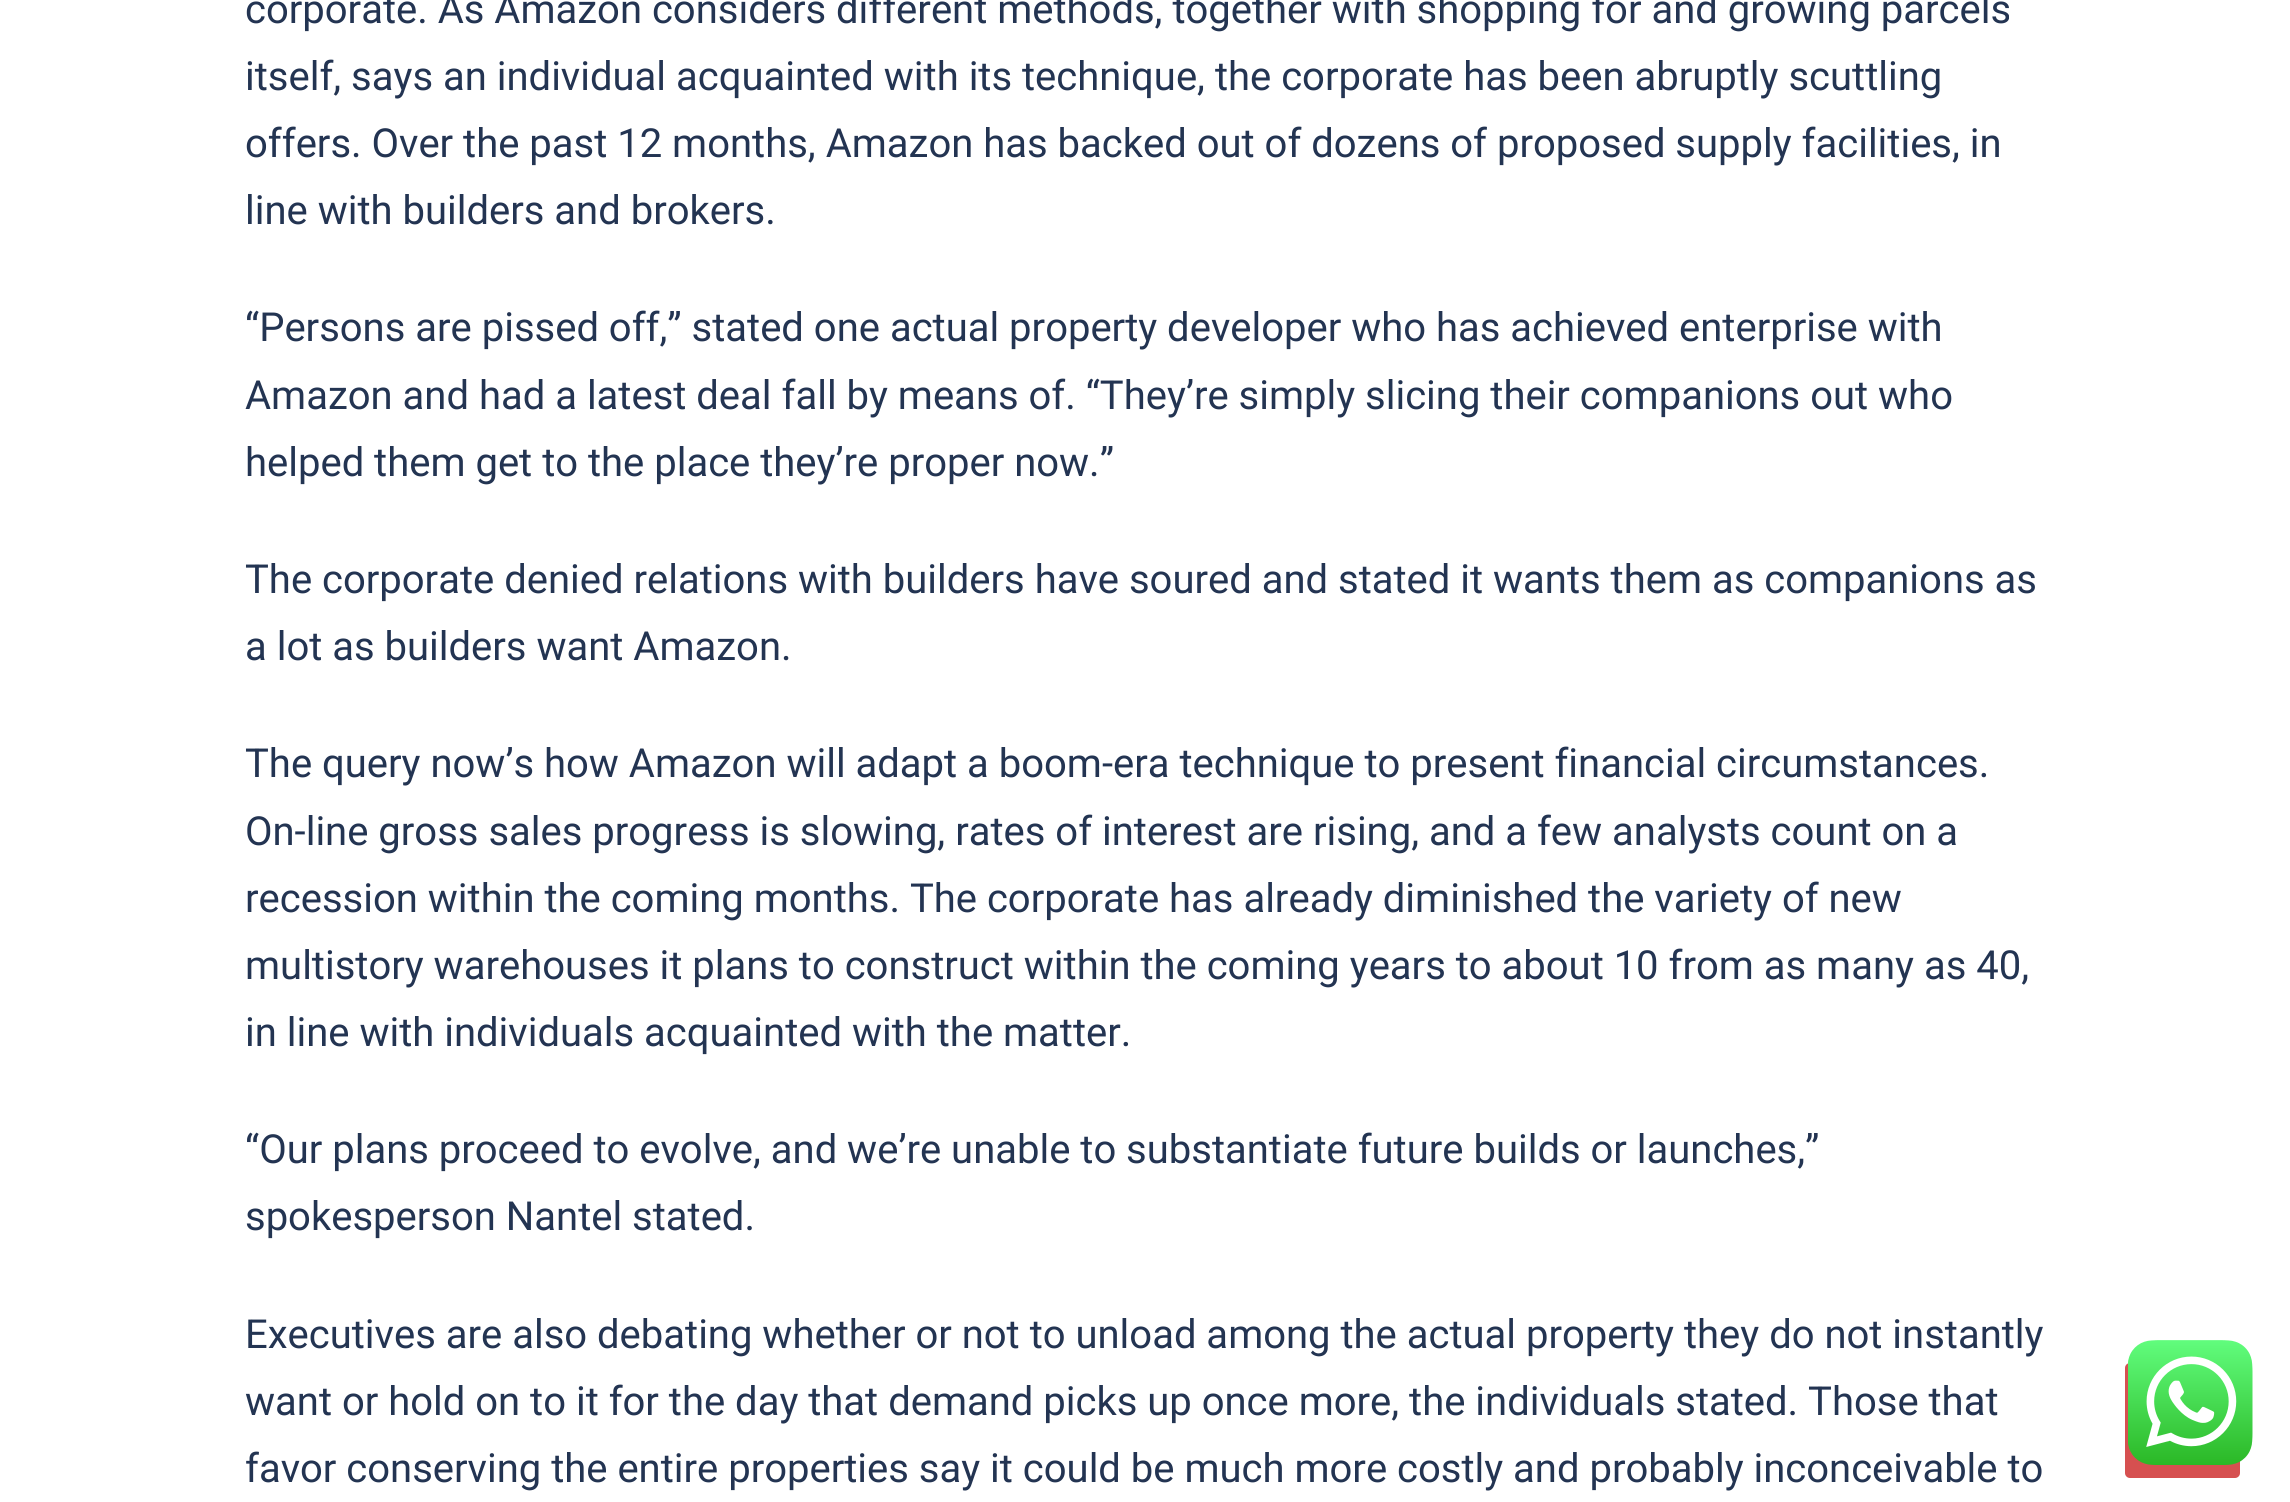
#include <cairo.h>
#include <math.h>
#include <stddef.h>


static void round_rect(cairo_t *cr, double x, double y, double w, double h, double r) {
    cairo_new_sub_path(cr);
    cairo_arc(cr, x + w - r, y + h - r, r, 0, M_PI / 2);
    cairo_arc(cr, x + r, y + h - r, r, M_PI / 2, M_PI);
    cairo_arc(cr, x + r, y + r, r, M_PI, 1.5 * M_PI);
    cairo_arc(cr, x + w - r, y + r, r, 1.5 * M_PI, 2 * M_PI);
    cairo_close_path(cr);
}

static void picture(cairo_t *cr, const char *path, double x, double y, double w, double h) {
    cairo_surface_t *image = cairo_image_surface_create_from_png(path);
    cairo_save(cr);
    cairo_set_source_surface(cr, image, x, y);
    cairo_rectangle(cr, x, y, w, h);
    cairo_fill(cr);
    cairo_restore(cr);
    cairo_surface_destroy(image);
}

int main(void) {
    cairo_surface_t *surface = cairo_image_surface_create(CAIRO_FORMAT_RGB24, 2290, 1502);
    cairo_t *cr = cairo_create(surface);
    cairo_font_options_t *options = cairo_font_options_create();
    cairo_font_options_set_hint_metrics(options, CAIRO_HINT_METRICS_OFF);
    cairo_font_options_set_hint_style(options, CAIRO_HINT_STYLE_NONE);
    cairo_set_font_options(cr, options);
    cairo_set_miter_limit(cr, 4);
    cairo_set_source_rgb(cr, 1, 1, 1);
    cairo_paint(cr);
    cairo_select_font_face(cr, "Roboto", CAIRO_FONT_SLANT_NORMAL, CAIRO_FONT_WEIGHT_NORMAL);
    cairo_set_font_size(cr, 40);
    cairo_set_source_rgb(cr, 0.137, 0.204, 0.322);
    cairo_move_to(cr, 245, 23);
    cairo_show_text(cr, "corporate. As Amazon considers different methods, together with shopping for and growing parcels");
    cairo_move_to(cr, 245, 90);
    cairo_show_text(cr, "itself, says an individual acquainted with its technique, the corporate has been abruptly scuttling");
    cairo_move_to(cr, 245, 157);
    cairo_show_text(cr, "offers. Over the past 12 months, Amazon has backed out of dozens of proposed supply facilities, in");
    cairo_move_to(cr, 245, 224);
    cairo_show_text(cr, "line with builders and brokers.");
    cairo_move_to(cr, 245, 341);
    cairo_show_text(cr, "“Persons are pissed off,” stated one actual property developer who has achieved enterprise with");
    cairo_move_to(cr, 245, 409);
    cairo_show_text(cr, "Amazon and had a latest deal fall by means of. “They’re simply slicing their companions out who");
    cairo_move_to(cr, 245, 476);
    cairo_show_text(cr, "helped them get to the place they’re proper now.”");
    cairo_move_to(cr, 245, 593);
    cairo_show_text(cr, "The corporate denied relations with builders have soured and stated it wants them as companions as");
    cairo_move_to(cr, 245, 660);
    cairo_show_text(cr, "a lot as builders want Amazon.");
    cairo_move_to(cr, 245, 777);
    cairo_show_text(cr, "The query now’s how Amazon will adapt a boom-era technique to present financial circumstances.");
    cairo_move_to(cr, 245, 845);
    cairo_show_text(cr, "On-line gross sales progress is slowing, rates of interest are rising, and a few analysts count on a");
    cairo_move_to(cr, 245, 912);
    cairo_show_text(cr, "recession within the coming months. The corporate has already diminished the variety of new");
    cairo_move_to(cr, 245, 979);
    cairo_show_text(cr, "multistory warehouses it plans to construct within the coming years to about 10 from as many as 40,");
    cairo_move_to(cr, 245, 1046);
    cairo_show_text(cr, "in line with individuals acquainted with the matter.");
    cairo_move_to(cr, 245, 1163);
    cairo_show_text(cr, "“Our plans proceed to evolve, and we’re unable to substantiate future builds or launches,”");
    cairo_move_to(cr, 245, 1230);
    cairo_show_text(cr, "spokesperson Nantel stated.");
    cairo_move_to(cr, 245, 1348);
    cairo_show_text(cr, "Executives are also debating whether or not to unload among the actual property they do not instantly");
    cairo_move_to(cr, 245, 1415);
    cairo_show_text(cr, "want or hold on to it for the day that demand picks up once more, the individuals stated. Those that");
    cairo_move_to(cr, 245, 1482);
    cairo_show_text(cr, "favor conserving the entire properties say it could be much more costly and probably inconceivable to");
    cairo_set_source_rgb(cr, 0.839, 0.314, 0.314);
    round_rect(cr, 2125, 1363, 115, 115, 5);
    cairo_fill(cr);
    picture(cr, "img1.png", 2128, 1340, 125, 125);
    cairo_surface_write_to_png(surface, "page.png");
    cairo_font_options_destroy(options);
    cairo_destroy(cr);
    cairo_surface_destroy(surface);
    return 0;
}
